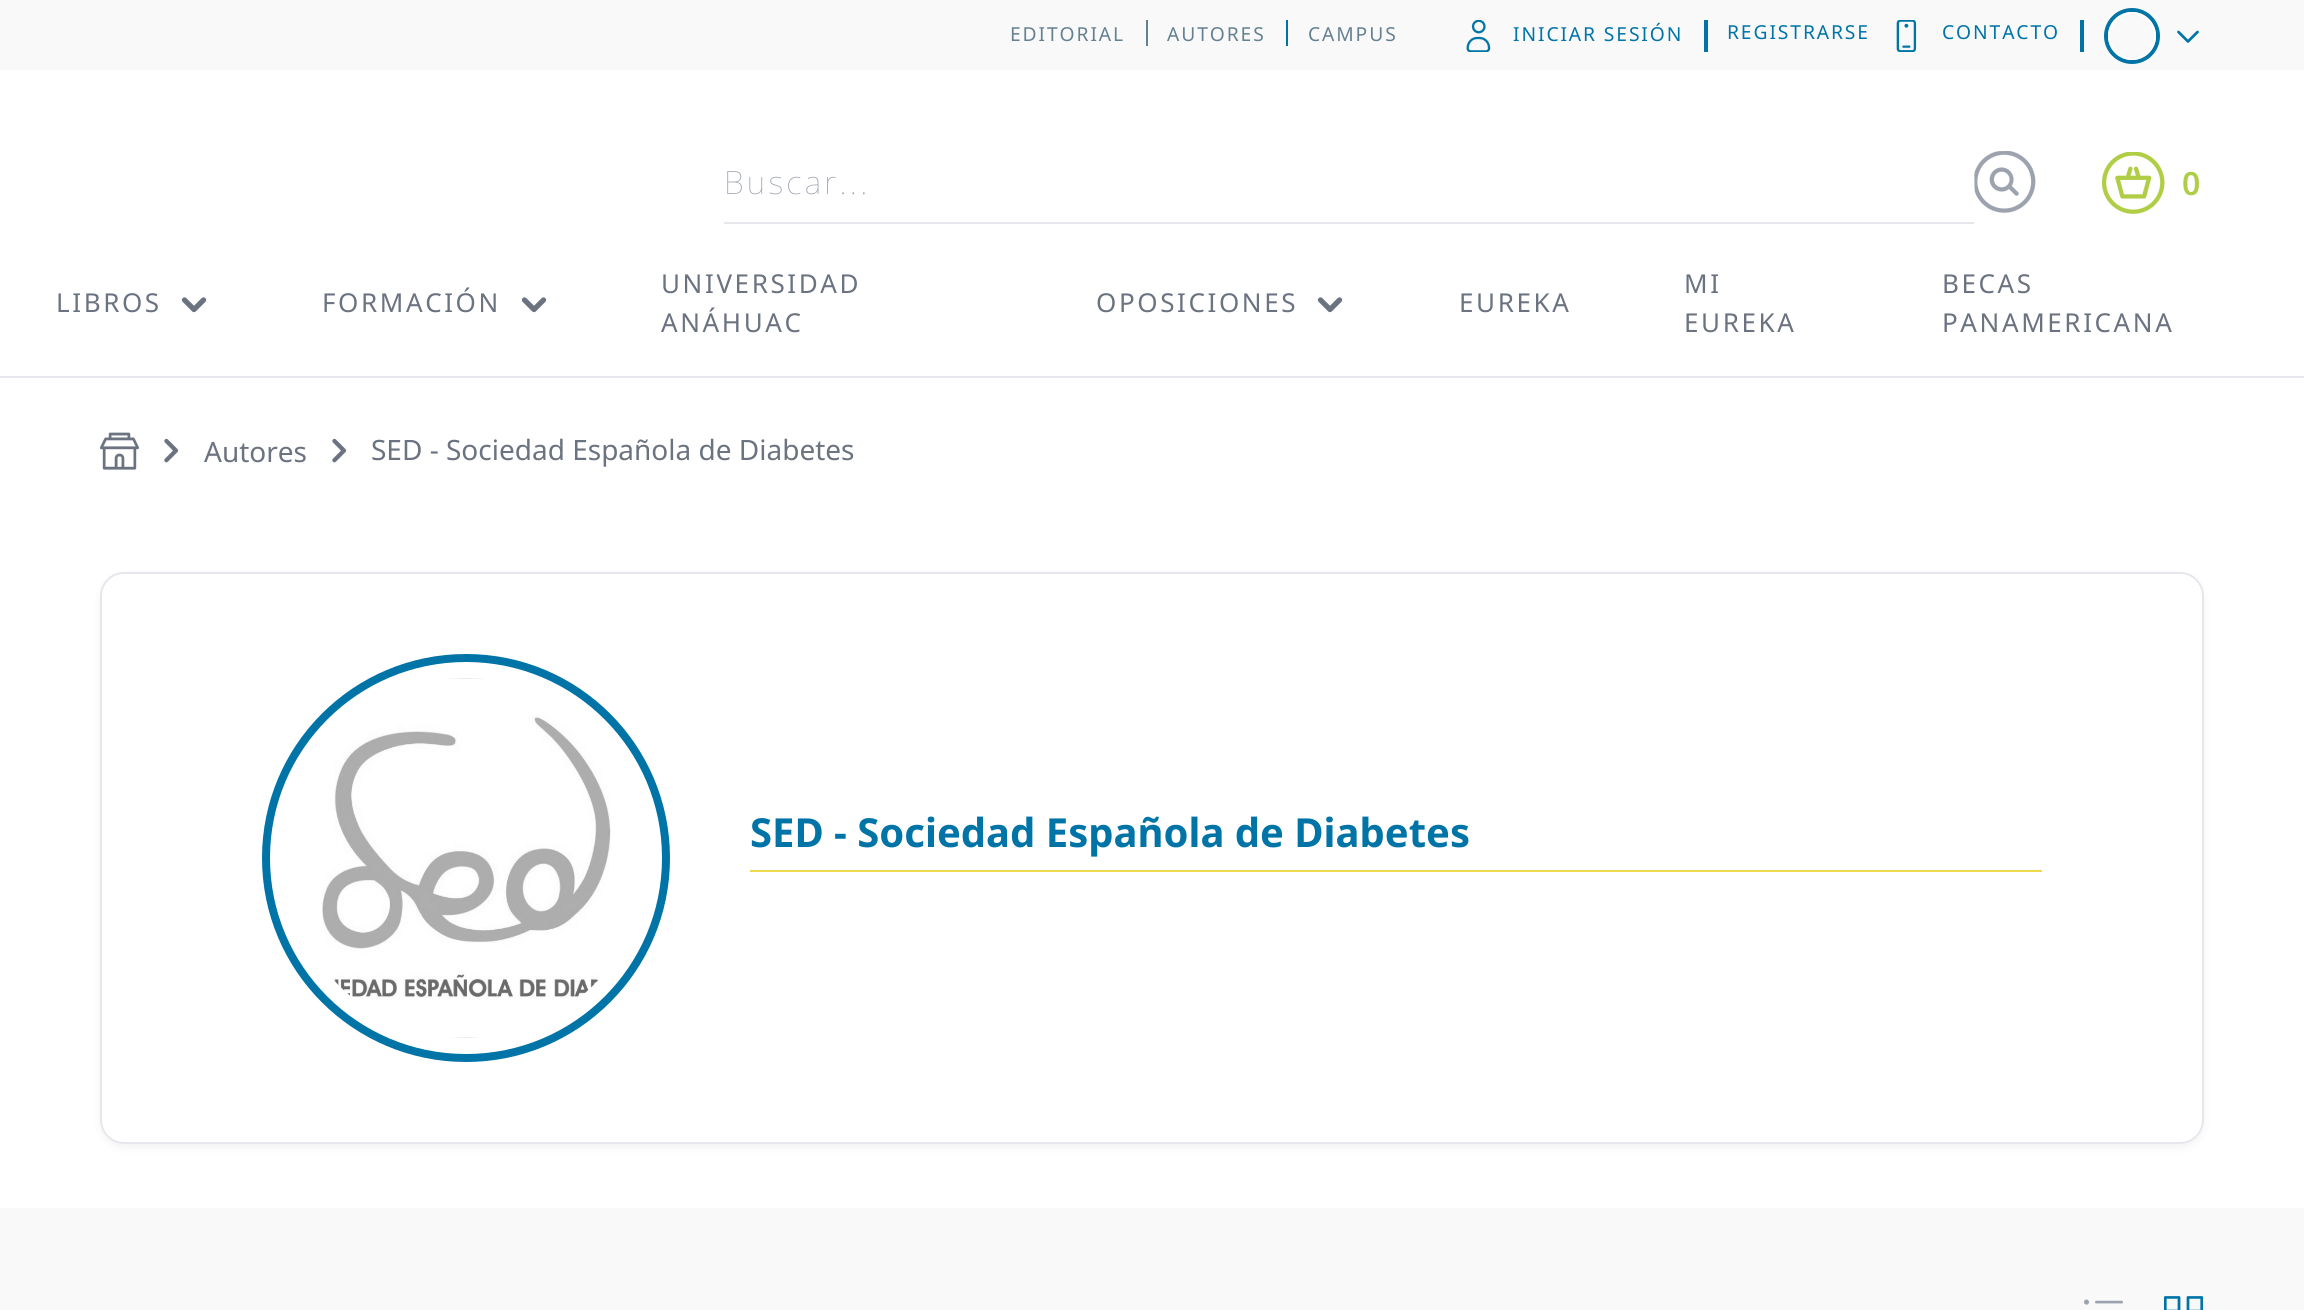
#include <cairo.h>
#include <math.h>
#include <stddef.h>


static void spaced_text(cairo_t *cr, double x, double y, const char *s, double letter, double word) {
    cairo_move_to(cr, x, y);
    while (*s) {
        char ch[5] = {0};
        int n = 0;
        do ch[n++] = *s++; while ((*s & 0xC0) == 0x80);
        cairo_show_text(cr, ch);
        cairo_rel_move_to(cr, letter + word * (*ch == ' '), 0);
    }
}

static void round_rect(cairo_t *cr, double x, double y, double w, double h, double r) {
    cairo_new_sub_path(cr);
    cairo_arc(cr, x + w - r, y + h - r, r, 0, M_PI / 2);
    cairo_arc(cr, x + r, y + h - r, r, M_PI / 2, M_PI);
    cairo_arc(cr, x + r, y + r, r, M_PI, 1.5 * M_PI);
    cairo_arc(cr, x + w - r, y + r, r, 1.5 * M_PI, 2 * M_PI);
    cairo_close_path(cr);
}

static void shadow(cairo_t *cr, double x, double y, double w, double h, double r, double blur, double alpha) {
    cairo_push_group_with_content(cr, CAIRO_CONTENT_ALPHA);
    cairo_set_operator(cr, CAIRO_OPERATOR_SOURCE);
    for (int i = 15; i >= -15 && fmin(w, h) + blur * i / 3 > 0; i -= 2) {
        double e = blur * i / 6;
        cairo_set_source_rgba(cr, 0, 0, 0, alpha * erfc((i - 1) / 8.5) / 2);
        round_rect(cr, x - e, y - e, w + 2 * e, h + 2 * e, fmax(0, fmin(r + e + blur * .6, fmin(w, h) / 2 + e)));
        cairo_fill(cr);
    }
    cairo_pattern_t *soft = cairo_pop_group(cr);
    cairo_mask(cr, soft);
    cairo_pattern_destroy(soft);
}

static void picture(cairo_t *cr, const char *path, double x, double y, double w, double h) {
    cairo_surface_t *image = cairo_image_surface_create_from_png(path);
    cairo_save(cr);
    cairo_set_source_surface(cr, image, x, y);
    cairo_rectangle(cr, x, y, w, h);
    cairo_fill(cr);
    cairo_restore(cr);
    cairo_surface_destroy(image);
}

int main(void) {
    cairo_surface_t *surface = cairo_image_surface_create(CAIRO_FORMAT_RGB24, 2304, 1310);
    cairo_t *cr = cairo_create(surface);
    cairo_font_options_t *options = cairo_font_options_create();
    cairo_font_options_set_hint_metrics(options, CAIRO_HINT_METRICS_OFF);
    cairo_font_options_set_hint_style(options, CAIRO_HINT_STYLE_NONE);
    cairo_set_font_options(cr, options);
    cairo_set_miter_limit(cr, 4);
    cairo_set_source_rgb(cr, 1, 1, 1);
    cairo_paint(cr);
    cairo_set_source_rgb(cr, 0.898, 0.906, 0.922);
    cairo_rectangle(cr, 0, 376, 2304, 2);
    cairo_fill(cr);
    cairo_set_source_rgb(cr, 0.976, 0.976, 0.976);
    cairo_rectangle(cr, 0, 0, 2304, 70);
    cairo_fill(cr);
    cairo_select_font_face(cr, "Noto Sans", CAIRO_FONT_SLANT_NORMAL, CAIRO_FONT_WEIGHT_NORMAL);
    cairo_set_font_size(cr, 19.25);
    cairo_set_source_rgb(cr, 0.396, 0.506, 0.569);
    spaced_text(cr, 1010, 41, "EDITORIAL", 1.9, 0);
    spaced_text(cr, 1167, 41, "AUTORES", 1.9, 0);
    cairo_rectangle(cr, 1146, 20, 2, 26);
    cairo_fill(cr);
    spaced_text(cr, 1308, 41, "CAMPUS", 1.9, 0);
    cairo_set_source_rgb(cr, 0, 0.455, 0.655);
    cairo_rectangle(cr, 1286, 20, 2, 26);
    cairo_fill(cr);
    picture(cr, "img1.png", 1466, 20, 25, 32);
    spaced_text(cr, 1513, 41, "INICIAR SESIÓN", 1.9, 0);
    cairo_rectangle(cr, 1704, 20, 4, 32);
    cairo_fill(cr);
    spaced_text(cr, 1727, 39, "REGISTRARSE", 1.9, 0);
    cairo_rectangle(cr, 2080, 20, 4, 32);
    cairo_fill(cr);
    picture(cr, "img2.png", 1896, 20, 21, 32);
    spaced_text(cr, 1942, 39, "CONTACTO", 1.9, 0);
    cairo_new_path(cr);
    cairo_arc(cr, 2132, 36, 26, 0, 2 * M_PI);
    cairo_set_line_width(cr, 4);
    cairo_stroke(cr);
    cairo_arc(cr, 2132, 36, 23, 0, 2 * M_PI);
    cairo_set_source_rgb(cr, 1, 1, 1);
    cairo_set_line_width(cr, 2);
    cairo_stroke(cr);
    cairo_new_path(cr);
    cairo_move_to(cr, 2197.5, 32);
    cairo_line_to(cr, 2188, 41.5);
    cairo_line_to(cr, 2178.5, 32);
    cairo_set_source_rgb(cr, 0, 0.455, 0.655);
    cairo_set_line_width(cr, 2.7);
    cairo_set_line_cap(cr, CAIRO_LINE_CAP_ROUND);
    cairo_set_line_join(cr, CAIRO_LINE_JOIN_ROUND);
    cairo_stroke(cr);
    cairo_set_source_rgb(cr, 0.898, 0.906, 0.922);
    cairo_rectangle(cr, 724, 222, 1250, 2);
    cairo_fill(cr);
    cairo_select_font_face(cr, "Noto Sans Thin", CAIRO_FONT_SLANT_NORMAL, CAIRO_FONT_WEIGHT_NORMAL);
    cairo_set_font_size(cr, 32);
    cairo_set_source_rgb(cr, 0.612, 0.639, 0.686);
    spaced_text(cr, 724, 194, "Buscar...", 3.25, 0);
    picture(cr, "img3.png", 1974, 151, 62, 62);
    picture(cr, "img4.png", 2102, 152, 63, 62);
    cairo_select_font_face(cr, "Noto Sans SemiBold", CAIRO_FONT_SLANT_NORMAL, CAIRO_FONT_WEIGHT_NORMAL);
    cairo_set_source_rgb(cr, 0.69, 0.804, 0.275);
    spaced_text(cr, 2182, 195, "0", 3.25, 0);
    cairo_select_font_face(cr, "Noto Sans", CAIRO_FONT_SLANT_NORMAL, CAIRO_FONT_WEIGHT_NORMAL);
    cairo_set_font_size(cr, 26);
    cairo_set_source_rgb(cr, 0.42, 0.447, 0.502);
    spaced_text(cr, 56, 312, "LIBROS", 2.6, 0);
    cairo_new_path(cr);
    cairo_move_to(cr, 203.5, 300);
    cairo_line_to(cr, 194, 309.5);
    cairo_line_to(cr, 184.5, 300);
    cairo_set_line_width(cr, 5.3);
    cairo_stroke(cr);
    spaced_text(cr, 322, 312, "FORMACIÓN", 2.6, 0);
    cairo_new_path(cr);
    cairo_move_to(cr, 543.5, 300);
    cairo_line_to(cr, 534, 309.5);
    cairo_line_to(cr, 524.5, 300);
    cairo_stroke(cr);
    spaced_text(cr, 661, 293, "UNIVERSIDAD", 2.6, 0);
    spaced_text(cr, 661, 332, "ANÁHUAC", 2.6, 0);
    spaced_text(cr, 1096, 312, "OPOSICIONES", 2.6, 0);
    cairo_new_path(cr);
    cairo_move_to(cr, 1339.5, 300);
    cairo_line_to(cr, 1330, 309.5);
    cairo_line_to(cr, 1320.5, 300);
    cairo_stroke(cr);
    spaced_text(cr, 1459, 312, "EUREKA", 2.6, 0);
    spaced_text(cr, 1684, 293, "MI", 2.6, 0);
    spaced_text(cr, 1684, 332, "EUREKA", 2.6, 0);
    spaced_text(cr, 1942, 293, "BECAS", 2.6, 0);
    spaced_text(cr, 1942, 332, "PANAMERICANA", 2.6, 0);
    picture(cr, "img5.png", 100, 432, 39, 38);
    picture(cr, "img6.png", 164, 438, 15, 25);
    cairo_set_font_size(cr, 28);
    cairo_move_to(cr, 204, 462);
    cairo_show_text(cr, "Autores");
    picture(cr, "img6.png", 332, 438, 15, 25);
    cairo_move_to(cr, 371, 460);
    cairo_show_text(cr, "SED - Sociedad Española de Diabetes");
    cairo_save(cr);
    cairo_set_fill_rule(cr, CAIRO_FILL_RULE_EVEN_ODD);
    cairo_new_path(cr);
    cairo_move_to(cr, 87, 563);
    cairo_line_to(cr, 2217, 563);
    cairo_line_to(cr, 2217, 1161);
    cairo_line_to(cr, 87, 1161);
    cairo_close_path(cr);
    cairo_move_to(cr, 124, 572);
    cairo_line_to(cr, 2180, 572);
    cairo_curve_to(cr, 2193.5, 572, 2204, 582.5, 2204, 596);
    cairo_line_to(cr, 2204, 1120);
    cairo_curve_to(cr, 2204, 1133.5, 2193.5, 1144, 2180, 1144);
    cairo_line_to(cr, 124, 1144);
    cairo_curve_to(cr, 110.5, 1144, 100, 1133.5, 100, 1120);
    cairo_line_to(cr, 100, 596);
    cairo_curve_to(cr, 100, 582.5, 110.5, 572, 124, 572);
    cairo_close_path(cr);
    cairo_clip(cr);
    cairo_set_source_rgb(cr, 0, 0, 0);
    shadow(cr, 100, 576, 2104, 572, 24, 4, 0.05);
    cairo_restore(cr);
    round_rect(cr, 101, 573, 2102, 570, 23);
    cairo_set_source_rgb(cr, 0.898, 0.906, 0.922);
    cairo_set_line_width(cr, 2);
    cairo_set_line_cap(cr, CAIRO_LINE_CAP_BUTT);
    cairo_set_line_join(cr, CAIRO_LINE_JOIN_MITER);
    cairo_stroke(cr);
    cairo_arc(cr, 466, 858, 200, 0, 2 * M_PI);
    cairo_set_source_rgb(cr, 0, 0.455, 0.655);
    cairo_set_line_width(cr, 8);
    cairo_stroke(cr);
    picture(cr, "img7.png", 322, 678, 289, 360);
    cairo_set_source_rgb(cr, 0.933, 0.859, 0.298);
    cairo_rectangle(cr, 750, 870, 1292, 2);
    cairo_fill(cr);
    cairo_select_font_face(cr, "Noto Sans", CAIRO_FONT_SLANT_NORMAL, CAIRO_FONT_WEIGHT_BOLD);
    cairo_set_font_size(cr, 40);
    cairo_set_source_rgb(cr, 0, 0.455, 0.655);
    cairo_move_to(cr, 750, 847);
    cairo_show_text(cr, "SED - Sociedad Española de Diabetes");
    cairo_set_source_rgb(cr, 0.976, 0.976, 0.976);
    cairo_rectangle(cr, 0, 1208, 2304, 102);
    cairo_fill(cr);
    picture(cr, "img8.png", 2084, 1299, 39, 6);
    picture(cr, "img9.png", 2164, 1296, 40, 14);
    cairo_surface_write_to_png(surface, "page.png");
    cairo_font_options_destroy(options);
    cairo_destroy(cr);
    cairo_surface_destroy(surface);
    return 0;
}
